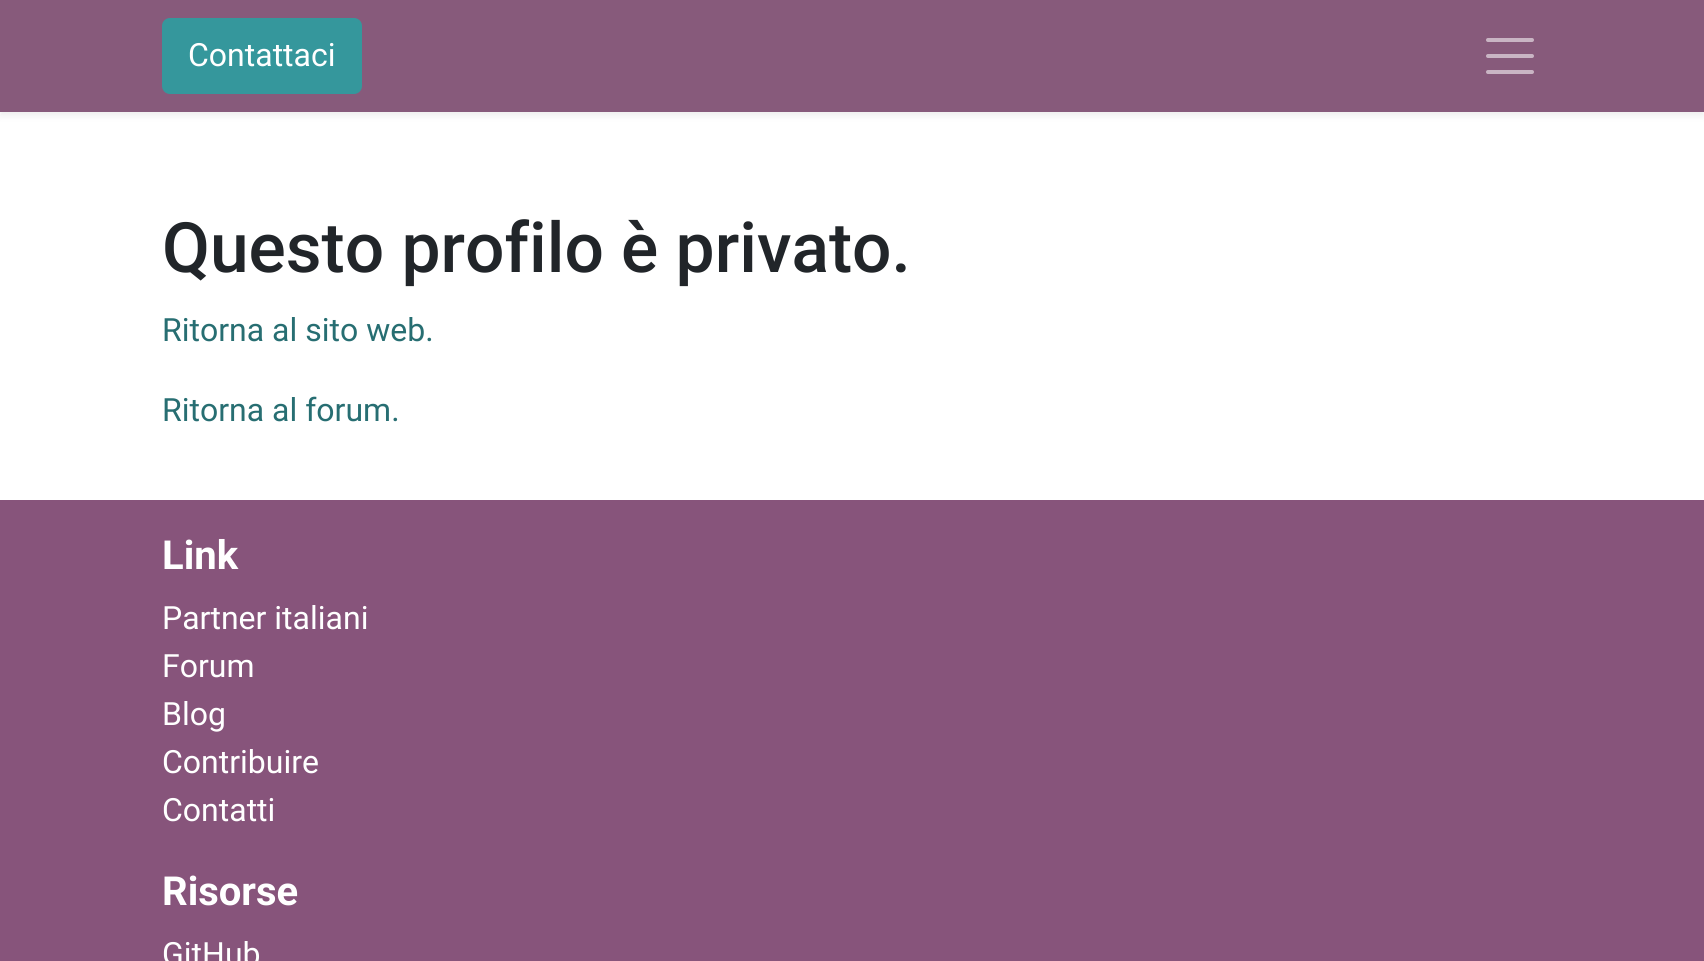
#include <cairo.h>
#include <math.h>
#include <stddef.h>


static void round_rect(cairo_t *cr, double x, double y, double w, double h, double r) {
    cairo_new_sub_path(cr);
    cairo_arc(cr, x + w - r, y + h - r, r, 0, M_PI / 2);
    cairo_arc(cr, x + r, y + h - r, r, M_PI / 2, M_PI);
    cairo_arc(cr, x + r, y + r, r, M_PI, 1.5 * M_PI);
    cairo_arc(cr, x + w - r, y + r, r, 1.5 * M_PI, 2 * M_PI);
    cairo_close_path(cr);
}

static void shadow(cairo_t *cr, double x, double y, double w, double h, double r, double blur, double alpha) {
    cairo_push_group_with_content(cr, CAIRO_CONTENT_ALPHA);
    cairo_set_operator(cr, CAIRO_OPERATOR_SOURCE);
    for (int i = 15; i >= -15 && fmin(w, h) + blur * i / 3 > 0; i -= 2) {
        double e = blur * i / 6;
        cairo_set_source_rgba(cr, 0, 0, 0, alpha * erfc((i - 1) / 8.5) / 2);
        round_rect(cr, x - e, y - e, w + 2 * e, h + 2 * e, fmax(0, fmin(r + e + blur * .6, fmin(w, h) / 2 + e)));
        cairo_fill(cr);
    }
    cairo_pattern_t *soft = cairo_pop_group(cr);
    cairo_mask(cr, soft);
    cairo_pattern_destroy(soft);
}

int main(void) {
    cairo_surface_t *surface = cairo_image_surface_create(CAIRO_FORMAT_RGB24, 1704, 961);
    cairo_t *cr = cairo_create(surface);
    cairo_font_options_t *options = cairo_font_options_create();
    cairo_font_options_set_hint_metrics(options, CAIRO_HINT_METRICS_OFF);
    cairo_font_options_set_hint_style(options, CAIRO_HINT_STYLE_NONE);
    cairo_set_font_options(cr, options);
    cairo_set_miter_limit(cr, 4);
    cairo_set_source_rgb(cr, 1, 1, 1);
    cairo_paint(cr);
    cairo_set_source_rgb(cr, 0, 0, 0);
    shadow(cr, 0, 4, 1704, 112, 0, 4, 0.07);
    cairo_set_source_rgb(cr, 0.529, 0.353, 0.482);
    cairo_rectangle(cr, 0, 0, 1704, 112);
    cairo_fill(cr);
    cairo_set_source_rgb(cr, 0.208, 0.592, 0.612);
    round_rect(cr, 163, 19, 198, 74, 7);
    cairo_fill_preserve(cr);
    cairo_stroke(cr);
    cairo_select_font_face(cr, "Roboto", CAIRO_FONT_SLANT_NORMAL, CAIRO_FONT_WEIGHT_NORMAL);
    cairo_set_font_size(cr, 32);
    cairo_set_source_rgb(cr, 1, 1, 1);
    cairo_move_to(cr, 188, 66);
    cairo_show_text(cr, "Contattaci");
    cairo_new_path(cr);
    cairo_move_to(cr, 1488, 40);
    cairo_line_to(cr, 1532, 40);
    cairo_move_to(cr, 1488, 56);
    cairo_line_to(cr, 1532, 56);
    cairo_move_to(cr, 1488, 72);
    cairo_line_to(cr, 1532, 72);
    cairo_set_source_rgb(cr, 0.788, 0.71, 0.769);
    cairo_set_line_width(cr, 4);
    cairo_set_line_cap(cr, CAIRO_LINE_CAP_ROUND);
    cairo_stroke(cr);
    cairo_select_font_face(cr, "Roboto Medium", CAIRO_FONT_SLANT_NORMAL, CAIRO_FONT_WEIGHT_NORMAL);
    cairo_set_font_size(cr, 69.5);
    cairo_set_source_rgb(cr, 0.129, 0.145, 0.161);
    cairo_move_to(cr, 162, 272);
    cairo_show_text(cr, "Questo profilo è privato.");
    cairo_select_font_face(cr, "Roboto", CAIRO_FONT_SLANT_NORMAL, CAIRO_FONT_WEIGHT_NORMAL);
    cairo_set_font_size(cr, 32);
    cairo_set_source_rgb(cr, 0.153, 0.431, 0.447);
    cairo_move_to(cr, 162, 341);
    cairo_show_text(cr, "Ritorna al sito web.");
    cairo_move_to(cr, 162, 421);
    cairo_show_text(cr, "Ritorna al forum.");
    cairo_set_source_rgb(cr, 0.529, 0.329, 0.482);
    cairo_rectangle(cr, 0, 500, 1704, 461);
    cairo_fill(cr);
    cairo_select_font_face(cr, "Roboto", CAIRO_FONT_SLANT_NORMAL, CAIRO_FONT_WEIGHT_BOLD);
    cairo_set_font_size(cr, 40);
    cairo_set_source_rgb(cr, 1, 1, 1);
    cairo_move_to(cr, 162, 569);
    cairo_show_text(cr, "Link");
    cairo_select_font_face(cr, "Roboto", CAIRO_FONT_SLANT_NORMAL, CAIRO_FONT_WEIGHT_NORMAL);
    cairo_set_font_size(cr, 32);
    cairo_move_to(cr, 162, 629);
    cairo_show_text(cr, "Partner italiani");
    cairo_move_to(cr, 162, 677);
    cairo_show_text(cr, "Forum");
    cairo_move_to(cr, 162, 725);
    cairo_show_text(cr, "Blog");
    cairo_move_to(cr, 162, 773);
    cairo_show_text(cr, "Contribuire");
    cairo_move_to(cr, 162, 821);
    cairo_show_text(cr, "Contatti");
    cairo_select_font_face(cr, "Roboto", CAIRO_FONT_SLANT_NORMAL, CAIRO_FONT_WEIGHT_BOLD);
    cairo_set_font_size(cr, 40);
    cairo_move_to(cr, 162, 905);
    cairo_show_text(cr, "Risorse");
    cairo_select_font_face(cr, "Roboto", CAIRO_FONT_SLANT_NORMAL, CAIRO_FONT_WEIGHT_NORMAL);
    cairo_set_font_size(cr, 32);
    cairo_move_to(cr, 162, 965);
    cairo_show_text(cr, "GitHub");
    cairo_surface_write_to_png(surface, "page.png");
    cairo_font_options_destroy(options);
    cairo_destroy(cr);
    cairo_surface_destroy(surface);
    return 0;
}
